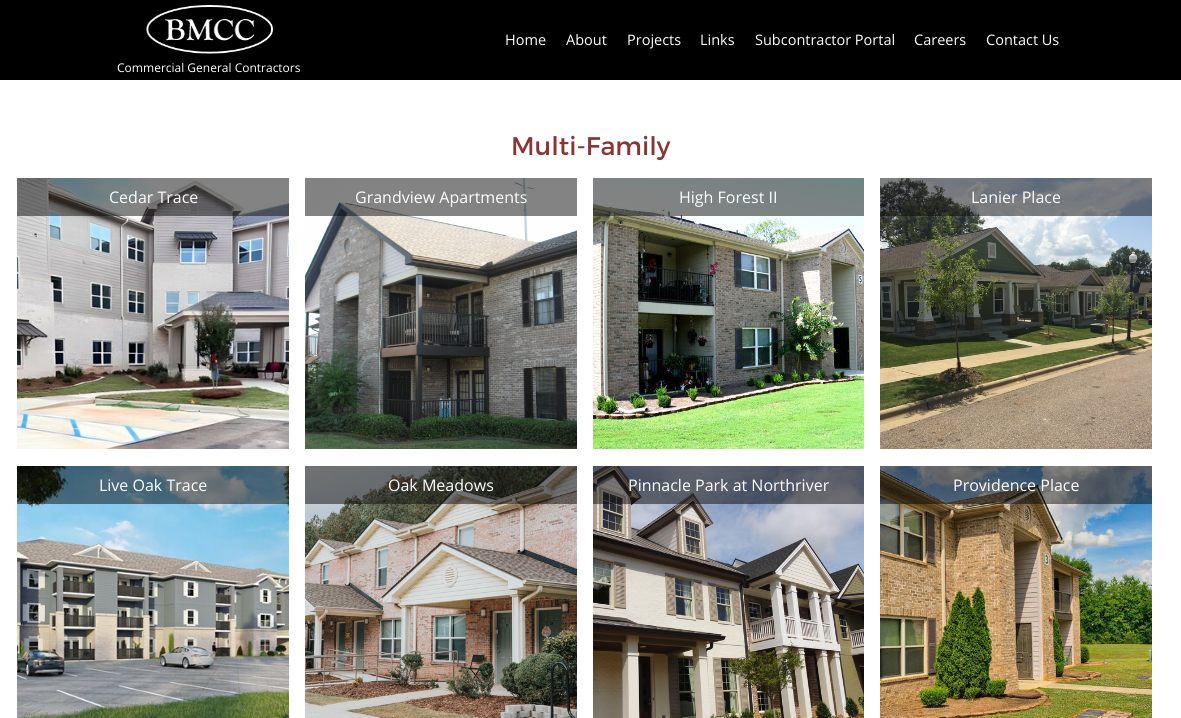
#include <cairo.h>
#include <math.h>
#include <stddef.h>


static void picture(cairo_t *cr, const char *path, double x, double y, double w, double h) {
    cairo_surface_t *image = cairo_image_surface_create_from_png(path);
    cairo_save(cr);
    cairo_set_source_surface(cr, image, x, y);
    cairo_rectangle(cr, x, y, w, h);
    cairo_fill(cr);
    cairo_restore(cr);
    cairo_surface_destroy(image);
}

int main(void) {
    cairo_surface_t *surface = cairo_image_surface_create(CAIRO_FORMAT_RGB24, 1181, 718);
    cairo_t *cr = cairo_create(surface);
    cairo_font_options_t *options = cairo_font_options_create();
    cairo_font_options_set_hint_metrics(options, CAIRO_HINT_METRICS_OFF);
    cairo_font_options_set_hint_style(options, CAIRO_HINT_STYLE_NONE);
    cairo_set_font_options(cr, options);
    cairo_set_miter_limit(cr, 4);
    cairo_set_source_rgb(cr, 1, 1, 1);
    cairo_paint(cr);
    cairo_set_source_rgb(cr, 0, 0, 0);
    cairo_rectangle(cr, 0, 0, 1181, 80);
    cairo_fill(cr);
    cairo_select_font_face(cr, "Open Sans", CAIRO_FONT_SLANT_NORMAL, CAIRO_FONT_WEIGHT_NORMAL);
    cairo_set_font_size(cr, 14.5);
    cairo_set_source_rgb(cr, 1, 1, 1);
    cairo_move_to(cr, 505, 45);
    cairo_show_text(cr, "Home");
    cairo_move_to(cr, 566, 45);
    cairo_show_text(cr, "About");
    cairo_move_to(cr, 627, 45);
    cairo_show_text(cr, "Projects");
    cairo_move_to(cr, 700, 45);
    cairo_show_text(cr, "Links");
    cairo_move_to(cr, 755, 45);
    cairo_show_text(cr, "Subcontractor Portal");
    cairo_move_to(cr, 914, 45);
    cairo_show_text(cr, "Careers");
    cairo_move_to(cr, 986, 45);
    cairo_show_text(cr, "Contact Us");
    picture(cr, "img1.png", 145, 5, 128, 49);
    cairo_set_font_size(cr, 12);
    cairo_move_to(cr, 117, 72);
    cairo_show_text(cr, "Commercial General Contractors");
    cairo_select_font_face(cr, "Montserrat", CAIRO_FONT_SLANT_NORMAL, CAIRO_FONT_WEIGHT_NORMAL);
    cairo_set_font_size(cr, 25.5);
    cairo_set_source_rgb(cr, 0.541, 0.208, 0.208);
    cairo_move_to(cr, 511, 155);
    cairo_show_text(cr, "Multi-Family");
    picture(cr, "img2.png", 17, 178, 272, 271);
    cairo_set_source_rgba(cr, 0.039, 0.039, 0.039, 0.5);
    cairo_rectangle(cr, 17, 178, 272, 38);
    cairo_fill(cr);
    cairo_select_font_face(cr, "Open Sans", CAIRO_FONT_SLANT_NORMAL, CAIRO_FONT_WEIGHT_NORMAL);
    cairo_set_font_size(cr, 16);
    cairo_set_source_rgb(cr, 1, 1, 1);
    cairo_move_to(cr, 109, 203);
    cairo_show_text(cr, "Cedar Trace");
    picture(cr, "img3.png", 305, 178, 272, 271);
    cairo_set_source_rgba(cr, 0.039, 0.039, 0.039, 0.5);
    cairo_rectangle(cr, 305, 178, 272, 38);
    cairo_fill(cr);
    cairo_set_source_rgb(cr, 1, 1, 1);
    cairo_move_to(cr, 355, 203);
    cairo_show_text(cr, "Grandview Apartments");
    picture(cr, "img4.png", 593, 178, 271, 271);
    cairo_set_source_rgba(cr, 0.039, 0.039, 0.039, 0.5);
    cairo_rectangle(cr, 593, 178, 271, 38);
    cairo_fill(cr);
    cairo_set_source_rgb(cr, 1, 1, 1);
    cairo_move_to(cr, 679, 203);
    cairo_show_text(cr, "High Forest II");
    picture(cr, "img5.png", 880, 178, 272, 271);
    cairo_set_source_rgba(cr, 0.039, 0.039, 0.039, 0.5);
    cairo_rectangle(cr, 880, 178, 272, 38);
    cairo_fill(cr);
    cairo_set_source_rgb(cr, 1, 1, 1);
    cairo_move_to(cr, 971, 203);
    cairo_show_text(cr, "Lanier Place");
    picture(cr, "img6.png", 17, 466, 272, 252);
    cairo_set_source_rgba(cr, 0.039, 0.039, 0.039, 0.5);
    cairo_rectangle(cr, 17, 466, 272, 38);
    cairo_fill(cr);
    cairo_set_source_rgb(cr, 1, 1, 1);
    cairo_move_to(cr, 99, 491);
    cairo_show_text(cr, "Live Oak Trace");
    picture(cr, "img7.png", 305, 466, 272, 252);
    cairo_set_source_rgba(cr, 0.039, 0.039, 0.039, 0.5);
    cairo_rectangle(cr, 305, 466, 272, 38);
    cairo_fill(cr);
    cairo_set_source_rgb(cr, 1, 1, 1);
    cairo_move_to(cr, 388, 491);
    cairo_show_text(cr, "Oak Meadows");
    picture(cr, "img8.png", 593, 466, 271, 252);
    cairo_set_source_rgba(cr, 0.039, 0.039, 0.039, 0.5);
    cairo_rectangle(cr, 593, 466, 271, 38);
    cairo_fill(cr);
    cairo_set_source_rgb(cr, 1, 1, 1);
    cairo_move_to(cr, 628, 491);
    cairo_show_text(cr, "Pinnacle Park at Northriver");
    picture(cr, "img9.png", 880, 466, 272, 252);
    cairo_set_source_rgba(cr, 0.039, 0.039, 0.039, 0.5);
    cairo_rectangle(cr, 880, 466, 272, 38);
    cairo_fill(cr);
    cairo_set_source_rgb(cr, 1, 1, 1);
    cairo_move_to(cr, 953, 491);
    cairo_show_text(cr, "Providence Place");
    cairo_surface_write_to_png(surface, "page.png");
    cairo_font_options_destroy(options);
    cairo_destroy(cr);
    cairo_surface_destroy(surface);
    return 0;
}
